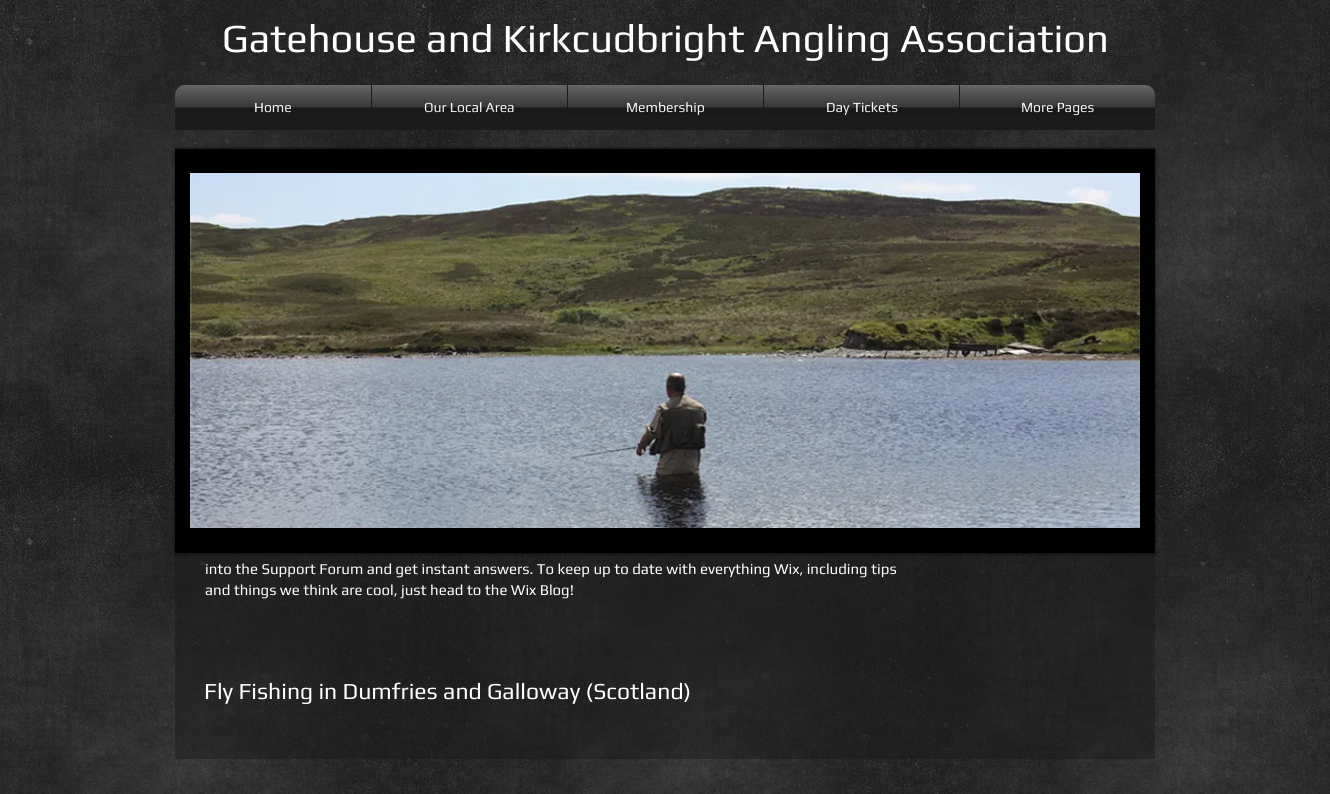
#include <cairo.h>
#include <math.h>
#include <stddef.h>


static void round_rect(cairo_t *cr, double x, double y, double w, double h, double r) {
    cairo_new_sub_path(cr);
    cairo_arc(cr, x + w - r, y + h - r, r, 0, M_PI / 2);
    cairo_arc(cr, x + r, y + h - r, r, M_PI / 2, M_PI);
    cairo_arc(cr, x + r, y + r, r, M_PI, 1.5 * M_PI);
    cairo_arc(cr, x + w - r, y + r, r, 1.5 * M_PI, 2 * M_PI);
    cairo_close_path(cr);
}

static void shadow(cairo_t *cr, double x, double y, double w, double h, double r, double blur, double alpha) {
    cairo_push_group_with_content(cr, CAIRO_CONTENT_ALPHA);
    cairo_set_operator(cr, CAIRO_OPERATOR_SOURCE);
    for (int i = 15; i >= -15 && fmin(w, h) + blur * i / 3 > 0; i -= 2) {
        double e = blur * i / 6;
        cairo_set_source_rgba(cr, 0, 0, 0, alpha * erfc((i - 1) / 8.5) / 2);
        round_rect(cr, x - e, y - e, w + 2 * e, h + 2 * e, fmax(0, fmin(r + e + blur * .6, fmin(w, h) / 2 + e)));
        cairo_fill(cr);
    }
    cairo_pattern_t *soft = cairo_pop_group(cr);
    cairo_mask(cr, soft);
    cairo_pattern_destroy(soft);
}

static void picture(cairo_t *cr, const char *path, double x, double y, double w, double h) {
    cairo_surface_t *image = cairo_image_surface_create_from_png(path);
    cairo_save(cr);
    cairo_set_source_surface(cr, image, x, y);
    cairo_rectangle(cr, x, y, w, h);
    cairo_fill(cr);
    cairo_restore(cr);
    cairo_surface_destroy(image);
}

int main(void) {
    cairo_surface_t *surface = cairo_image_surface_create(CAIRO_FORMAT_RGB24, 1330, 794);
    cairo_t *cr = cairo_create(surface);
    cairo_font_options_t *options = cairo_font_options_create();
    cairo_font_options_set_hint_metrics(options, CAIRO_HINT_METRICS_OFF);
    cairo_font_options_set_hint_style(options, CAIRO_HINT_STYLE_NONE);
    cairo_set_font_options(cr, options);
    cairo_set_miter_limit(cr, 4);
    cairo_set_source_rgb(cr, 0.106, 0.106, 0.106);
    cairo_paint(cr);
    picture(cr, "img1.png", 0, 0, 1330, 794);
    cairo_select_font_face(cr, "Play", CAIRO_FONT_SLANT_NORMAL, CAIRO_FONT_WEIGHT_NORMAL);
    cairo_set_font_size(cr, 40);
    cairo_set_source_rgb(cr, 1, 1, 1);
    cairo_move_to(cr, 222, 52);
    cairo_show_text(cr, "Gatehouse and Kirkcudbright Angling Association");
    picture(cr, "img2.png", 175, 85, 980, 10);
    cairo_set_source_rgb(cr, 0.106, 0.106, 0.106);
    cairo_new_path(cr);
    cairo_move_to(cr, 185, 85);
    cairo_line_to(cr, 371, 85);
    cairo_line_to(cr, 371, 130);
    cairo_line_to(cr, 175, 130);
    cairo_line_to(cr, 175, 95);
    cairo_curve_to(cr, 175, 89.5, 179.5, 85, 185, 85);
    cairo_close_path(cr);
    cairo_fill(cr);
    cairo_set_font_size(cr, 14);
    cairo_set_source_rgb(cr, 1, 1, 1);
    cairo_move_to(cr, 254, 112);
    cairo_show_text(cr, "Home");
    picture(cr, "img3.png", 175, 85, 196, 27);
    cairo_set_source_rgb(cr, 0.106, 0.106, 0.106);
    cairo_rectangle(cr, 371, 85, 588, 45);
    cairo_fill(cr);
    cairo_set_source_rgb(cr, 1, 1, 1);
    cairo_move_to(cr, 424, 112);
    cairo_show_text(cr, "Our Local Area");
    picture(cr, "img4.png", 372, 85, 195, 27);
    cairo_move_to(cr, 626, 112);
    cairo_show_text(cr, "Membership");
    picture(cr, "img5.png", 568, 85, 195, 30);
    cairo_move_to(cr, 826, 112);
    cairo_show_text(cr, "Day Tickets");
    picture(cr, "img6.png", 764, 85, 195, 30);
    cairo_set_source_rgb(cr, 0.106, 0.106, 0.106);
    cairo_new_path(cr);
    cairo_move_to(cr, 959, 85);
    cairo_line_to(cr, 1145, 85);
    cairo_curve_to(cr, 1150.5, 85, 1155, 89.5, 1155, 95);
    cairo_line_to(cr, 1155, 130);
    cairo_line_to(cr, 959, 130);
    cairo_close_path(cr);
    cairo_fill(cr);
    cairo_set_source_rgb(cr, 1, 1, 1);
    cairo_move_to(cr, 1021, 112);
    cairo_show_text(cr, "More Pages");
    picture(cr, "img7.png", 960, 85, 195, 30);
    cairo_set_source_rgba(cr, 0.106, 0.106, 0.106, 0.5);
    cairo_rectangle(cr, 175, 147, 980, 500);
    cairo_fill(cr);
    cairo_set_source_rgb(cr, 0, 0, 0);
    shadow(cr, 175, 150, 980, 404, 0, 2, 0.6);
    cairo_set_source_rgb(cr, 0, 0, 0);
    cairo_rectangle(cr, 175, 149, 980, 404);
    cairo_fill(cr);
    picture(cr, "img8.png", 190, 173, 950, 355);
    cairo_set_font_size(cr, 15);
    cairo_set_source_rgb(cr, 1, 1, 1);
    cairo_move_to(cr, 205, 574);
    cairo_show_text(cr, "into the Support Forum and get instant answers. To keep up to date with everything Wix, including tips");
    cairo_move_to(cr, 205, 595);
    cairo_show_text(cr, "and things we think are cool, just head to the Wix Blog!");
    cairo_set_source_rgba(cr, 0.106, 0.106, 0.106, 0.5);
    cairo_rectangle(cr, 175, 647, 980, 112);
    cairo_fill(cr);
    cairo_set_font_size(cr, 23);
    cairo_set_source_rgb(cr, 1, 1, 1);
    cairo_move_to(cr, 204, 699);
    cairo_show_text(cr, "Fly Fishing in Dumfries and Galloway (Scotland)");
    cairo_surface_write_to_png(surface, "page.png");
    cairo_font_options_destroy(options);
    cairo_destroy(cr);
    cairo_surface_destroy(surface);
    return 0;
}
